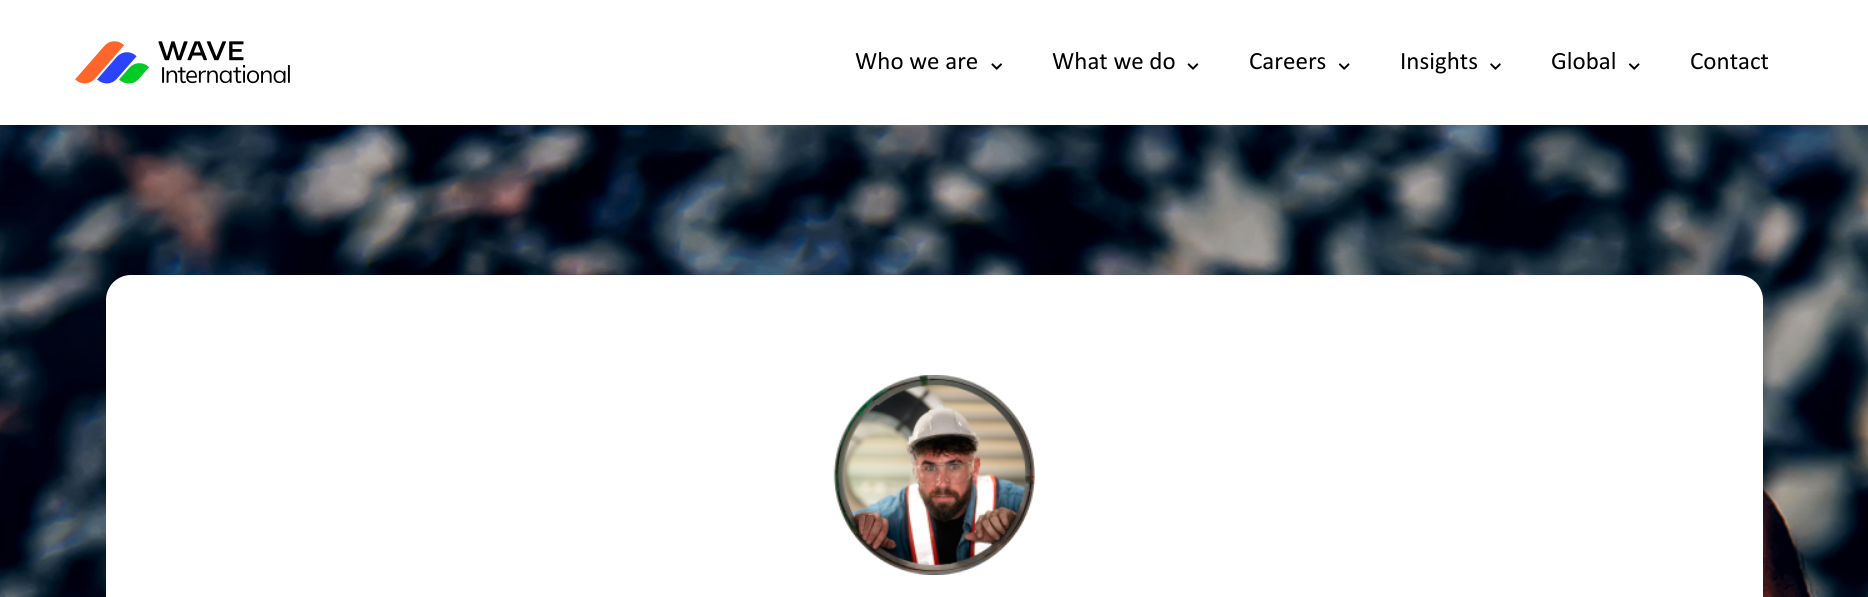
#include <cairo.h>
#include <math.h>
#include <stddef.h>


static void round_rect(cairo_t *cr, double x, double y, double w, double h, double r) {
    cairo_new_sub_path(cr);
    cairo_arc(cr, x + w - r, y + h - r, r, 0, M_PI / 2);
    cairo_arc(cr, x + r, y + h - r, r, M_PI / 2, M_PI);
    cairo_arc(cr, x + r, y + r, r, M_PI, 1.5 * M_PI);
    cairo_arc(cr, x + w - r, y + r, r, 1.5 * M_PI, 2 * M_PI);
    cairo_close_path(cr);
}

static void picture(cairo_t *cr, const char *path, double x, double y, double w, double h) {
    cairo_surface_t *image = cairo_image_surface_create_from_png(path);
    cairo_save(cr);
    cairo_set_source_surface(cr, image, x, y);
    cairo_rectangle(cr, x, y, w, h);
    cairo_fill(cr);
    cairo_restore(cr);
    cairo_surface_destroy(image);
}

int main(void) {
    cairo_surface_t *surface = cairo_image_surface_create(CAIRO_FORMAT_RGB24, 1868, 597);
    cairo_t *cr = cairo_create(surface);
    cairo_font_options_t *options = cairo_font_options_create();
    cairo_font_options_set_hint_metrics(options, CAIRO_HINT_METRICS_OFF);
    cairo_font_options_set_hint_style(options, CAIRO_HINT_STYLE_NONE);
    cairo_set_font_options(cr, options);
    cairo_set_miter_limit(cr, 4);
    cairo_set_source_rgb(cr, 1, 1, 1);
    cairo_paint(cr);
    picture(cr, "img1.png", 75, 41, 215, 43);
    cairo_select_font_face(cr, "Calibri", CAIRO_FONT_SLANT_NORMAL, CAIRO_FONT_WEIGHT_NORMAL);
    cairo_set_font_size(cr, 25);
    cairo_set_source_rgb(cr, 0, 0, 0);
    cairo_move_to(cr, 855, 69);
    cairo_show_text(cr, "Who we are");
    picture(cr, "img2.png", 991, 63, 11, 7);
    cairo_move_to(cr, 1052, 69);
    cairo_show_text(cr, "What we do");
    picture(cr, "img3.png", 1187, 63, 12, 7);
    cairo_move_to(cr, 1249, 69);
    cairo_show_text(cr, "Careers");
    picture(cr, "img4.png", 1338, 63, 12, 7);
    cairo_move_to(cr, 1400, 69);
    cairo_show_text(cr, "Insights");
    picture(cr, "img5.png", 1490, 63, 11, 7);
    cairo_move_to(cr, 1551, 69);
    cairo_show_text(cr, "Global");
    picture(cr, "img4.png", 1628, 63, 12, 7);
    cairo_move_to(cr, 1690, 69);
    cairo_show_text(cr, "Contact");
    picture(cr, "img6.png", 0, 125, 1868, 472);
    cairo_set_source_rgb(cr, 1, 1, 1);
    round_rect(cr, 106, 275, 1657, 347, 25);
    cairo_fill(cr);
    picture(cr, "img7.png", 833, 375, 202, 200);
    cairo_surface_write_to_png(surface, "page.png");
    cairo_font_options_destroy(options);
    cairo_destroy(cr);
    cairo_surface_destroy(surface);
    return 0;
}
